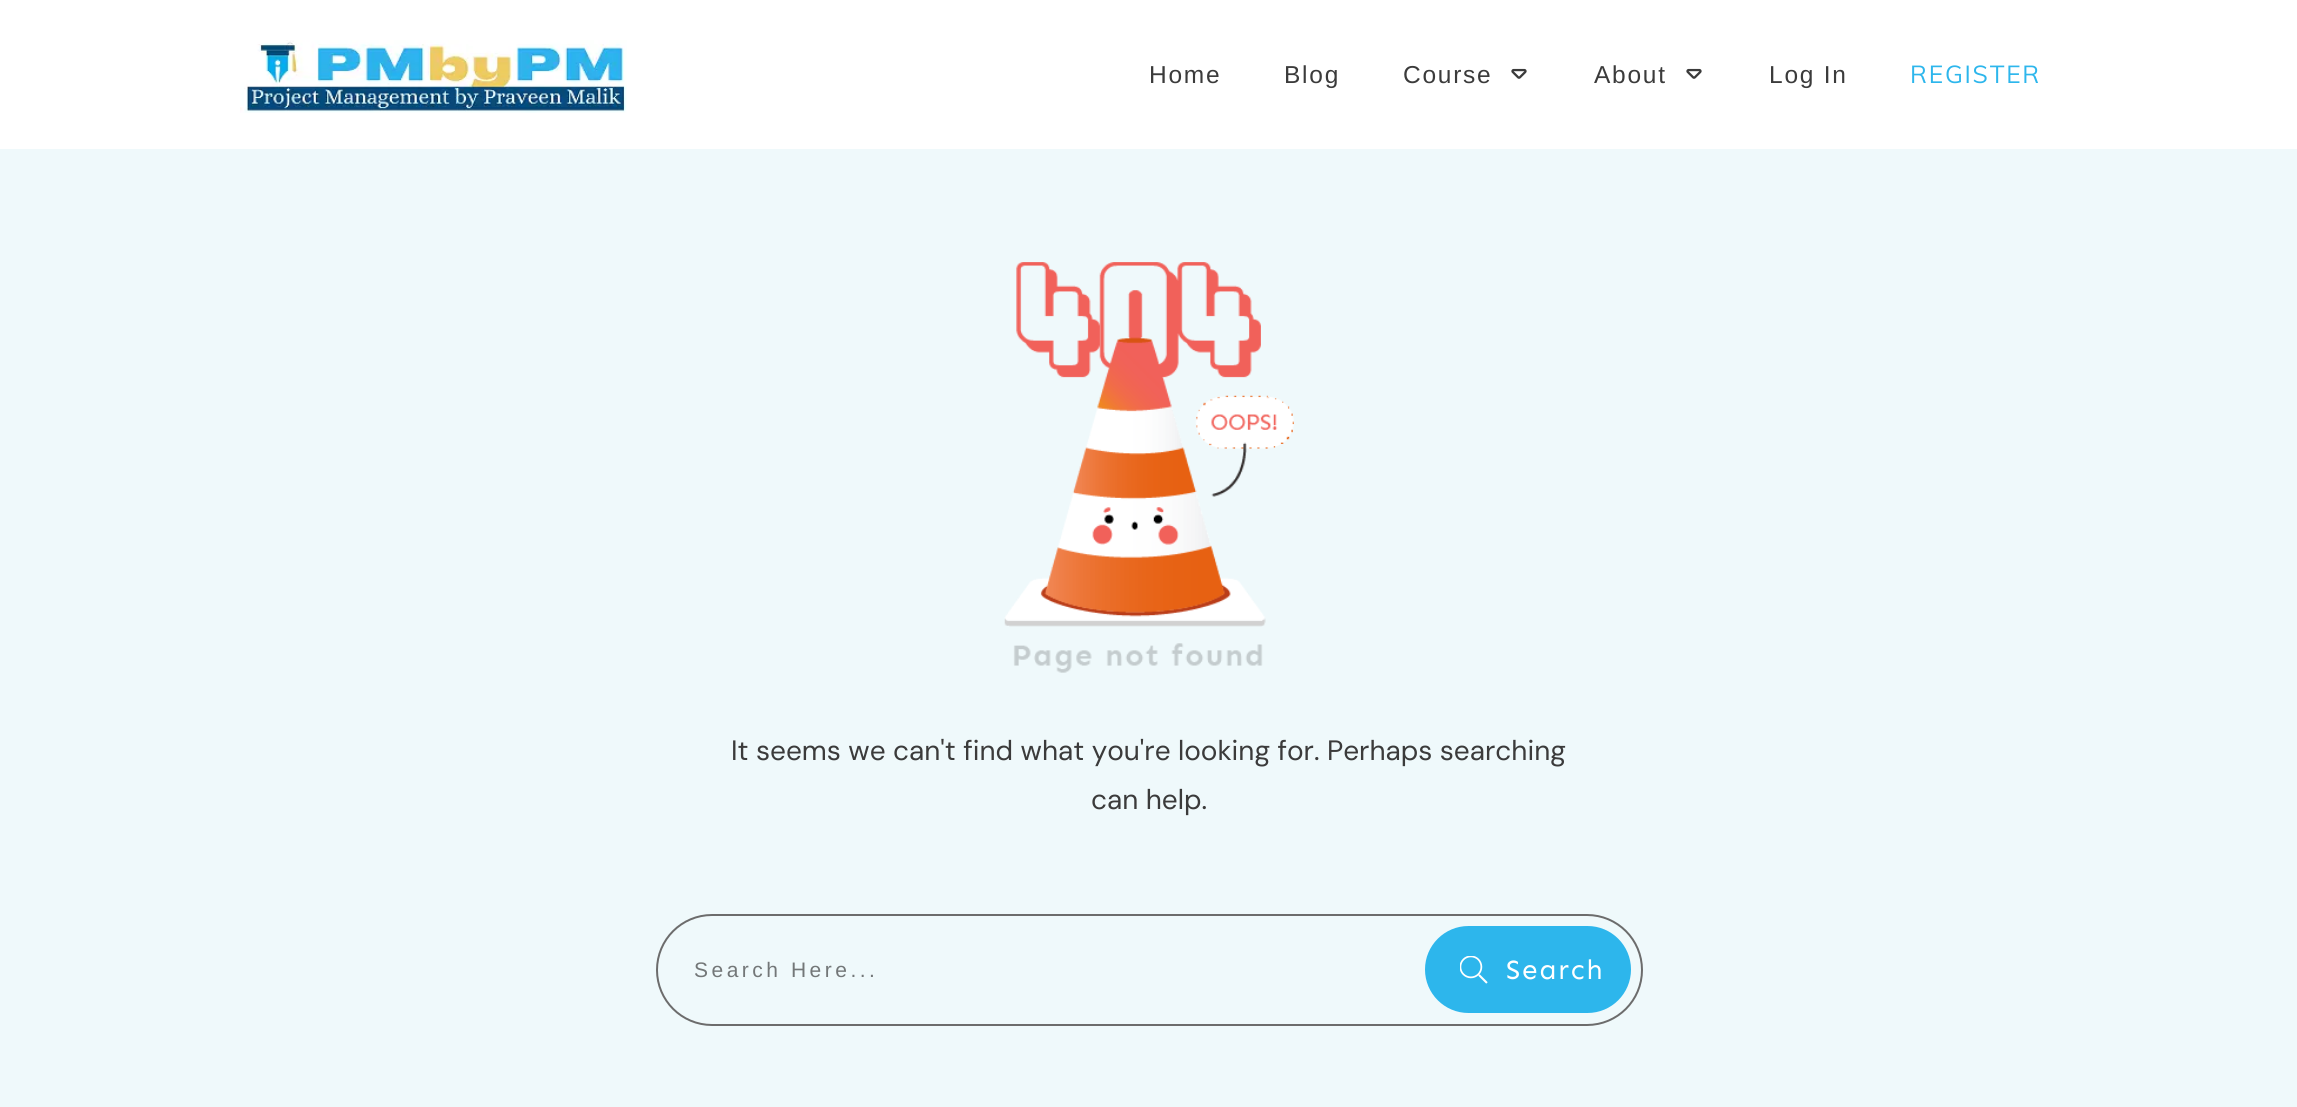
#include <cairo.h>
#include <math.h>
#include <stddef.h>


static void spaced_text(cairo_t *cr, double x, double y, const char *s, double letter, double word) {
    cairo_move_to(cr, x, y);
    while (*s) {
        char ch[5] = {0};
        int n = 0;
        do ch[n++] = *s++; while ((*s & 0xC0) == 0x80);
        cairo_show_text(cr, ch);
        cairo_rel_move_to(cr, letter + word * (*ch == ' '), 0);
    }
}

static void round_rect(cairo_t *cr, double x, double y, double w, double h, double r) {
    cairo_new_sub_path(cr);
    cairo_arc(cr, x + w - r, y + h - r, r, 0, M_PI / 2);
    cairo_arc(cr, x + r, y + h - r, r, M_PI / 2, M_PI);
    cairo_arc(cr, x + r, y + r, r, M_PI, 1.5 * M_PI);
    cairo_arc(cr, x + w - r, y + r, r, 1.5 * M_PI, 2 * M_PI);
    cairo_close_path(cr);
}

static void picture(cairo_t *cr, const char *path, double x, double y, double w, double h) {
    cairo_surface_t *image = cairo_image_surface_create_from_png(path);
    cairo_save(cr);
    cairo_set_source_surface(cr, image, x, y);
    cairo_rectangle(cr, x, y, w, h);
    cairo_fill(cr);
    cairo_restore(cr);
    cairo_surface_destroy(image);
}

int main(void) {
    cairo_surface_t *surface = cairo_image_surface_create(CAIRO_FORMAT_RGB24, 2297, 1107);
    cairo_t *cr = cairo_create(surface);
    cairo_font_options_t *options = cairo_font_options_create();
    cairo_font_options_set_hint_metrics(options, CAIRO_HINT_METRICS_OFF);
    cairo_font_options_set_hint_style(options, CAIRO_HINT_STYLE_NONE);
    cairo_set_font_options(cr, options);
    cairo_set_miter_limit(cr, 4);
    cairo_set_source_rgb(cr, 0.937, 0.973, 0.984);
    cairo_paint(cr);
    cairo_set_source_rgb(cr, 1, 1, 1);
    cairo_rectangle(cr, 0, 0, 2297, 149);
    cairo_fill(cr);
    picture(cr, "img1.png", 240, 40, 387, 73);
    cairo_select_font_face(cr, "Liberation Sans", CAIRO_FONT_SLANT_NORMAL, CAIRO_FONT_WEIGHT_NORMAL);
    cairo_set_font_size(cr, 24.5);
    cairo_set_source_rgb(cr, 0.231, 0.231, 0.231);
    spaced_text(cr, 1149, 83, "Home", 1.75, 0);
    spaced_text(cr, 1284, 83, "Blog", 1.75, 0);
    spaced_text(cr, 1403, 83, "Course", 1.75, 0);
    picture(cr, "img2.png", 1511, 68, 16, 11);
    spaced_text(cr, 1594, 83, "About", 1.75, 0);
    picture(cr, "img2.png", 1686, 68, 16, 11);
    spaced_text(cr, 1769, 83, "Log In", 1.75, 0);
    cairo_select_font_face(cr, "Muli", CAIRO_FONT_SLANT_NORMAL, CAIRO_FONT_WEIGHT_NORMAL);
    cairo_set_source_rgb(cr, 0.176, 0.714, 0.922);
    spaced_text(cr, 1910, 83, "REGISTER", 1.75, 0);
    picture(cr, "img3.png", 1004, 262, 290, 411);
    cairo_select_font_face(cr, "DM Sans", CAIRO_FONT_SLANT_NORMAL, CAIRO_FONT_WEIGHT_NORMAL);
    cairo_set_font_size(cr, 28);
    cairo_set_source_rgb(cr, 0.231, 0.231, 0.231);
    cairo_move_to(cr, 731, 760);
    cairo_show_text(cr, "It seems we can't find what you're looking for. Perhaps searching");
    cairo_move_to(cr, 1091, 809);
    cairo_show_text(cr, "can help.");
    round_rect(cr, 657, 915, 985, 110, 55);
    cairo_set_source_rgb(cr, 0.424, 0.424, 0.424);
    cairo_stroke(cr);
    cairo_select_font_face(cr, "Liberation Sans", CAIRO_FONT_SLANT_NORMAL, CAIRO_FONT_WEIGHT_NORMAL);
    cairo_set_font_size(cr, 21);
    cairo_set_source_rgb(cr, 0.451, 0.467, 0.471);
    spaced_text(cr, 694, 977, "Search Here...", 3.5, 0);
    cairo_set_source_rgb(cr, 0.176, 0.714, 0.922);
    round_rect(cr, 1425, 926, 206, 87, 43.5);
    cairo_fill(cr);
    picture(cr, "img4.png", 1460, 956, 28, 28);
    cairo_select_font_face(cr, "Sen", CAIRO_FONT_SLANT_NORMAL, CAIRO_FONT_WEIGHT_NORMAL);
    cairo_set_font_size(cr, 28);
    cairo_set_source_rgb(cr, 1, 1, 1);
    spaced_text(cr, 1506, 979, "Search", 1.75, 0);
    cairo_surface_write_to_png(surface, "page.png");
    cairo_font_options_destroy(options);
    cairo_destroy(cr);
    cairo_surface_destroy(surface);
    return 0;
}
